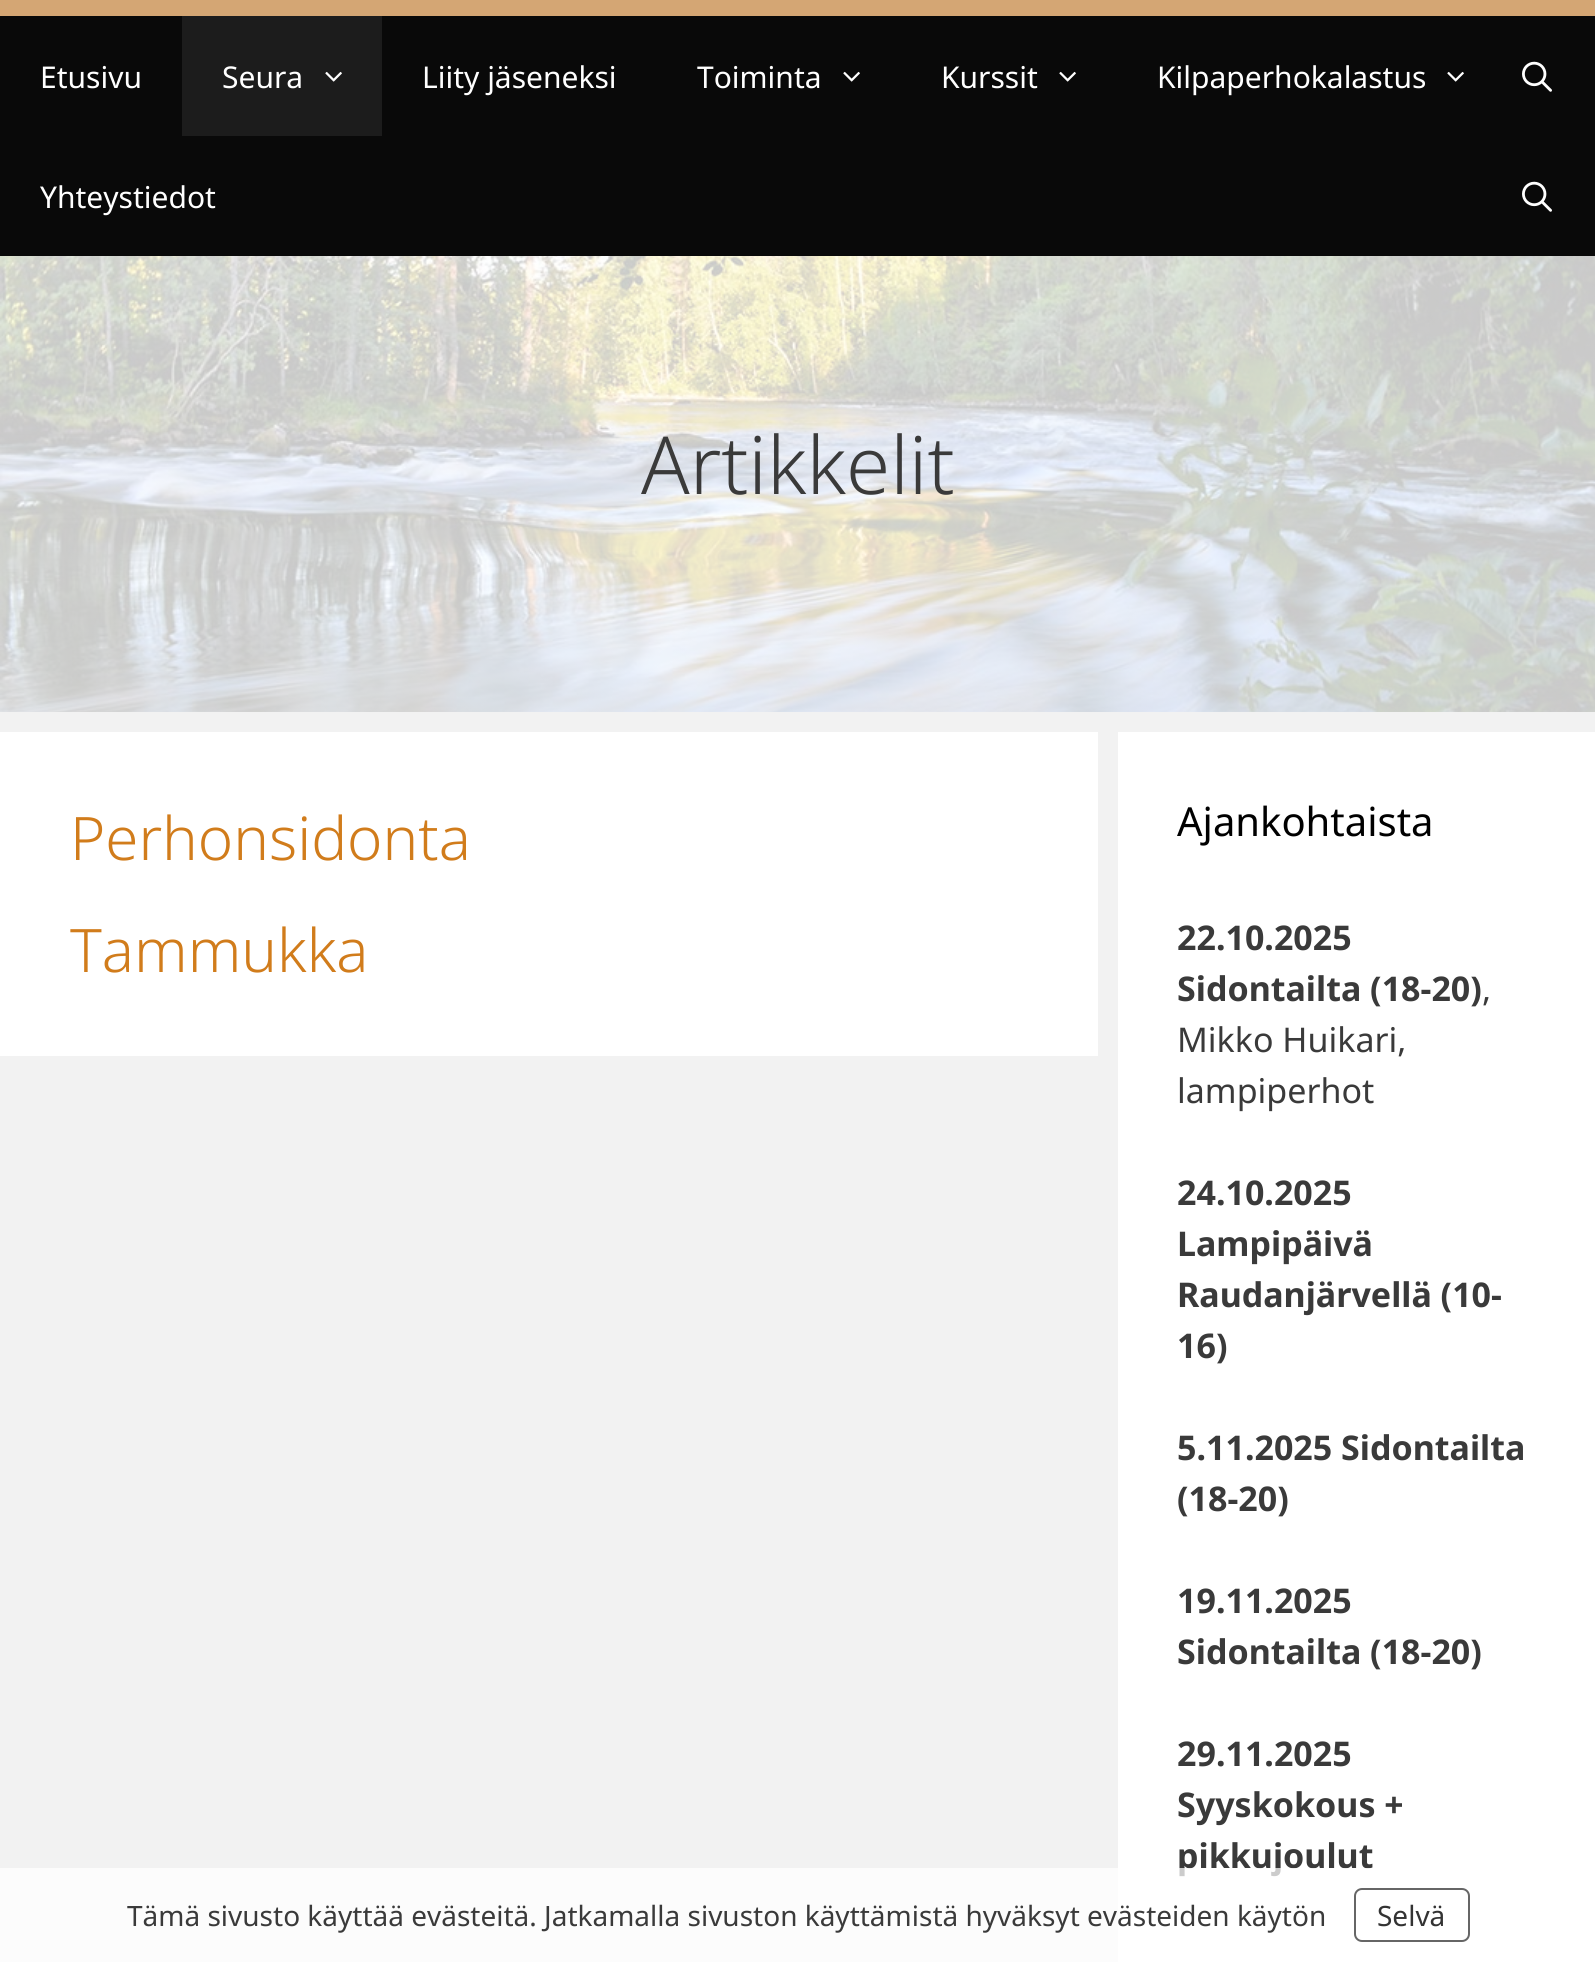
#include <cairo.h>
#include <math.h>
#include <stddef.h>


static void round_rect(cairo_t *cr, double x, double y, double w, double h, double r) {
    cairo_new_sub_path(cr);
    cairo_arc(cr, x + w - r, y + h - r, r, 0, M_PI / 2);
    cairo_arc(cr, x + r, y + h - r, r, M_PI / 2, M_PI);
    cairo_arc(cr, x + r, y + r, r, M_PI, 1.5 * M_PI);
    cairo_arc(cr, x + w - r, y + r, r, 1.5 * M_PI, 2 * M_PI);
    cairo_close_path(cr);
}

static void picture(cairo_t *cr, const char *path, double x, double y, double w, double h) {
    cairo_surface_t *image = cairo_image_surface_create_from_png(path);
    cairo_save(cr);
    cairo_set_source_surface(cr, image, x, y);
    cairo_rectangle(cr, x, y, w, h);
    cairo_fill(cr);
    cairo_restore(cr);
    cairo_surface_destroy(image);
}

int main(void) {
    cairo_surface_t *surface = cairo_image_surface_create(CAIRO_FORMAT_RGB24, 1595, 1962);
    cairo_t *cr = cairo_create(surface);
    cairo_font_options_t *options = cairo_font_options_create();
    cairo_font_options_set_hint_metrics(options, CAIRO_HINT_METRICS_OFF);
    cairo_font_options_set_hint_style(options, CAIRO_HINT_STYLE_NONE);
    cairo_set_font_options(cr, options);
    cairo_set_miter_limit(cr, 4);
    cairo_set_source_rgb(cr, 0.949, 0.949, 0.949);
    cairo_paint(cr);
    cairo_set_source_rgb(cr, 0.831, 0.651, 0.455);
    cairo_rectangle(cr, 0, 0, 1595, 16);
    cairo_fill(cr);
    cairo_set_source_rgb(cr, 0.039, 0.039, 0.039);
    cairo_rectangle(cr, 0, 16, 1595, 240);
    cairo_fill(cr);
    cairo_select_font_face(cr, "Noto Sans", CAIRO_FONT_SLANT_NORMAL, CAIRO_FONT_WEIGHT_NORMAL);
    cairo_set_font_size(cr, 30);
    cairo_set_source_rgb(cr, 1, 1, 1);
    cairo_move_to(cr, 40, 88);
    cairo_show_text(cr, "Etusivu");
    cairo_set_source_rgb(cr, 0.11, 0.11, 0.11);
    cairo_rectangle(cr, 182, 16, 200, 120);
    cairo_fill(cr);
    cairo_set_source_rgb(cr, 1, 1, 1);
    cairo_move_to(cr, 222, 88);
    cairo_show_text(cr, "Seura");
    picture(cr, "img1.png", 325, 71, 17, 11);
    cairo_move_to(cr, 422, 88);
    cairo_show_text(cr, "Liity jäseneksi");
    cairo_move_to(cr, 697, 88);
    cairo_show_text(cr, "Toiminta");
    picture(cr, "img2.png", 843, 71, 17, 11);
    cairo_move_to(cr, 941, 88);
    cairo_show_text(cr, "Kurssit");
    picture(cr, "img2.png", 1059, 71, 17, 11);
    cairo_move_to(cr, 1157, 88);
    cairo_show_text(cr, "Kilpaperhokalastus");
    picture(cr, "img2.png", 1447, 71, 17, 11);
    cairo_move_to(cr, 40, 208);
    cairo_show_text(cr, "Yhteystiedot");
    picture(cr, "img3.png", 1522, 181, 30, 31);
    picture(cr, "img3.png", 1522, 61, 30, 31);
    picture(cr, "img4.png", 0, 256, 1595, 456);
    cairo_select_font_face(cr, "Noto Sans Light", CAIRO_FONT_SLANT_NORMAL, CAIRO_FONT_WEIGHT_NORMAL);
    cairo_set_font_size(cr, 80);
    cairo_set_source_rgb(cr, 0.227, 0.227, 0.227);
    cairo_move_to(cr, 641, 494);
    cairo_show_text(cr, "Artikkelit");
    cairo_set_source_rgb(cr, 1, 1, 1);
    cairo_rectangle(cr, 0, 732, 1098, 324);
    cairo_fill(cr);
    cairo_set_font_size(cr, 60);
    cairo_set_source_rgb(cr, 0.82, 0.486, 0.106);
    cairo_move_to(cr, 70, 860);
    cairo_show_text(cr, "Perhonsidonta");
    cairo_move_to(cr, 70, 972);
    cairo_show_text(cr, "Tammukka");
    cairo_set_source_rgb(cr, 1, 1, 1);
    cairo_rectangle(cr, 1118, 732, 477, 1230);
    cairo_fill(cr);
    cairo_select_font_face(cr, "Noto Sans", CAIRO_FONT_SLANT_NORMAL, CAIRO_FONT_WEIGHT_NORMAL);
    cairo_set_font_size(cr, 40);
    cairo_set_source_rgb(cr, 0, 0, 0);
    cairo_move_to(cr, 1177, 836);
    cairo_show_text(cr, "Ajankohtaista");
    cairo_select_font_face(cr, "Noto Sans", CAIRO_FONT_SLANT_NORMAL, CAIRO_FONT_WEIGHT_BOLD);
    cairo_set_font_size(cr, 34);
    cairo_set_source_rgb(cr, 0.227, 0.227, 0.227);
    cairo_move_to(cr, 1177, 950);
    cairo_show_text(cr, "22.10.2025");
    cairo_move_to(cr, 1177, 1001);
    cairo_show_text(cr, "Sidontailta (18-20)");
    cairo_select_font_face(cr, "Noto Sans", CAIRO_FONT_SLANT_NORMAL, CAIRO_FONT_WEIGHT_NORMAL);
    cairo_move_to(cr, 1482, 1001);
    cairo_show_text(cr, ",");
    cairo_move_to(cr, 1177, 1052);
    cairo_show_text(cr, "Mikko Huikari,");
    cairo_move_to(cr, 1177, 1103);
    cairo_show_text(cr, "lampiperhot");
    cairo_select_font_face(cr, "Noto Sans", CAIRO_FONT_SLANT_NORMAL, CAIRO_FONT_WEIGHT_BOLD);
    cairo_move_to(cr, 1177, 1205);
    cairo_show_text(cr, "24.10.2025");
    cairo_move_to(cr, 1177, 1256);
    cairo_show_text(cr, "Lampipäivä");
    cairo_move_to(cr, 1177, 1307);
    cairo_show_text(cr, "Raudanjärvellä (10-");
    cairo_move_to(cr, 1177, 1358);
    cairo_show_text(cr, "16)");
    cairo_move_to(cr, 1177, 1460);
    cairo_show_text(cr, "5.11.2025 Sidontailta");
    cairo_move_to(cr, 1177, 1511);
    cairo_show_text(cr, "(18-20)");
    cairo_move_to(cr, 1177, 1613);
    cairo_show_text(cr, "19.11.2025");
    cairo_move_to(cr, 1177, 1664);
    cairo_show_text(cr, "Sidontailta (18-20)");
    cairo_move_to(cr, 1177, 1766);
    cairo_show_text(cr, "29.11.2025");
    cairo_move_to(cr, 1177, 1817);
    cairo_show_text(cr, "Syyskokous +");
    cairo_move_to(cr, 1177, 1868);
    cairo_show_text(cr, "pikkujoulut");
    cairo_set_source_rgba(cr, 1, 1, 1, 0.74);
    cairo_rectangle(cr, 0, 1868, 1371, 94);
    cairo_fill(cr);
    cairo_select_font_face(cr, "Noto Sans", CAIRO_FONT_SLANT_NORMAL, CAIRO_FONT_WEIGHT_NORMAL);
    cairo_set_font_size(cr, 28);
    cairo_set_source_rgb(cr, 0.227, 0.227, 0.227);
    cairo_move_to(cr, 127, 1926);
    cairo_show_text(cr, "Tämä sivusto käyttää evästeitä. Jatkamalla sivuston käyttämistä hyväksyt evästeiden käytön");
    round_rect(cr, 1355, 1889, 114, 52, 7);
    cairo_set_source_rgb(cr, 0.4, 0.4, 0.4);
    cairo_stroke(cr);
    cairo_set_source_rgb(cr, 0.2, 0.2, 0.2);
    cairo_move_to(cr, 1377, 1926);
    cairo_show_text(cr, "Selvä");
    cairo_surface_write_to_png(surface, "page.png");
    cairo_font_options_destroy(options);
    cairo_destroy(cr);
    cairo_surface_destroy(surface);
    return 0;
}
